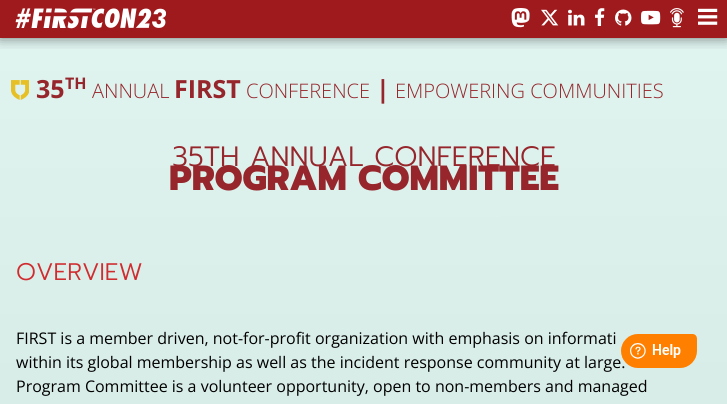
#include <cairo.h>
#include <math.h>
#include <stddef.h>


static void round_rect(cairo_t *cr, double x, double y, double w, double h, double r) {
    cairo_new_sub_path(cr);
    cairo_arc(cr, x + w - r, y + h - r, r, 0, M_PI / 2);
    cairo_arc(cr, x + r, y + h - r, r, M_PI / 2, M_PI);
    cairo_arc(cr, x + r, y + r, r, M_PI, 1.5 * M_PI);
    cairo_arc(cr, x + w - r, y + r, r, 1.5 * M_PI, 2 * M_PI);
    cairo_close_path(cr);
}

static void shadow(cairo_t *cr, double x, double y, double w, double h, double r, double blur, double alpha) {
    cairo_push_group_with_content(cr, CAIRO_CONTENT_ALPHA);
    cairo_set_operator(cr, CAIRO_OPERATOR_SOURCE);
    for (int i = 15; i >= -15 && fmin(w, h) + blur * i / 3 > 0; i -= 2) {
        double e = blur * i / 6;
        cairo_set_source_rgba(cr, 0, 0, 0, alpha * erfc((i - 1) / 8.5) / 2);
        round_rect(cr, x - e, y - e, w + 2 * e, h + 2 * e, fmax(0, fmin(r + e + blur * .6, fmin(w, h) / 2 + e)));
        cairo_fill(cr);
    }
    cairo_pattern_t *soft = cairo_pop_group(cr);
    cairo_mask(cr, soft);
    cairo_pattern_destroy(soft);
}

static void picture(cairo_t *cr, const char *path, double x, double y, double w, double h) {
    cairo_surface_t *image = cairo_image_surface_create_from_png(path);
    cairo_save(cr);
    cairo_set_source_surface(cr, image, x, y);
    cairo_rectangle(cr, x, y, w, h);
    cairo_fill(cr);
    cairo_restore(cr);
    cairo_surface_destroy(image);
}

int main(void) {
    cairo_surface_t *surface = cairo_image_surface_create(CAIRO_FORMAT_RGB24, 727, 404);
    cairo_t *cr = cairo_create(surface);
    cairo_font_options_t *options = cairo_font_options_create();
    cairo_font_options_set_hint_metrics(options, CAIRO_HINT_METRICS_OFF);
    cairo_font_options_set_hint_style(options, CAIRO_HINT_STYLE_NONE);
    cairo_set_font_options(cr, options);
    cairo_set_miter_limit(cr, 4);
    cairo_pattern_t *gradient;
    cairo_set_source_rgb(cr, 1, 1, 1);
    cairo_paint(cr);
    gradient = cairo_pattern_create_linear(363, 0, 364, 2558);
    cairo_pattern_add_color_stop_rgba(gradient, 0, 0.878, 0.957, 0.941, 1);
    cairo_pattern_add_color_stop_rgba(gradient, 0.95, 0.706, 0.784, 0.745, 1);
    cairo_pattern_add_color_stop_rgba(gradient, 1, 0.706, 0.784, 0.745, 1);
    cairo_set_source(cr, gradient);
    cairo_pattern_destroy(gradient);
    cairo_rectangle(cr, 0, 38, 727, 366);
    cairo_fill(cr);
    cairo_set_source_rgb(cr, 0.62, 0.102, 0.114);
    cairo_rectangle(cr, 0, 0, 727, 38);
    cairo_fill(cr);
    cairo_save(cr);
    cairo_rectangle(cr, 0, 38, 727, 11);
    cairo_clip(cr);
    cairo_set_source_rgb(cr, 0, 0, 0);
    shadow(cr, 0, 0, 727, 38, 0, 6.5, 0.5);
    cairo_restore(cr);
    picture(cr, "img1.png", 15, 8, 151, 21);
    picture(cr, "img2.png", 511, 8, 19, 20);
    picture(cr, "img3.png", 541, 9, 18, 17);
    picture(cr, "img4.png", 568, 9, 17, 17);
    picture(cr, "img5.png", 595, 8, 10, 18);
    picture(cr, "img6.png", 615, 9, 17, 17);
    picture(cr, "img7.png", 641, 10, 20, 15);
    picture(cr, "img8.png", 670, 8, 14, 20);
    picture(cr, "img9.png", 698, 8, 20, 17);
    picture(cr, "img10.png", 11, 80, 18, 20);
    cairo_select_font_face(cr, "Open Sans", CAIRO_FONT_SLANT_NORMAL, CAIRO_FONT_WEIGHT_BOLD);
    cairo_set_font_size(cr, 25);
    cairo_set_source_rgb(cr, 0.588, 0.149, 0.173);
    cairo_move_to(cr, 36, 98);
    cairo_show_text(cr, "35");
    cairo_set_font_size(cr, 16);
    cairo_move_to(cr, 65, 89);
    cairo_show_text(cr, "TH");
    cairo_select_font_face(cr, "Open Sans Light", CAIRO_FONT_SLANT_NORMAL, CAIRO_FONT_WEIGHT_NORMAL);
    cairo_set_font_size(cr, 20);
    cairo_move_to(cr, 92, 98);
    cairo_show_text(cr, "ANNUAL");
    cairo_select_font_face(cr, "Open Sans", CAIRO_FONT_SLANT_NORMAL, CAIRO_FONT_WEIGHT_BOLD);
    cairo_set_font_size(cr, 25);
    cairo_move_to(cr, 174, 98);
    cairo_show_text(cr, "FIRST");
    cairo_select_font_face(cr, "Open Sans Light", CAIRO_FONT_SLANT_NORMAL, CAIRO_FONT_WEIGHT_NORMAL);
    cairo_set_font_size(cr, 20);
    cairo_move_to(cr, 246, 98);
    cairo_show_text(cr, "CONFERENCE");
    cairo_select_font_face(cr, "Open Sans", CAIRO_FONT_SLANT_NORMAL, CAIRO_FONT_WEIGHT_BOLD);
    cairo_set_font_size(cr, 25);
    cairo_move_to(cr, 376, 98);
    cairo_show_text(cr, "|");
    cairo_select_font_face(cr, "Open Sans Light", CAIRO_FONT_SLANT_NORMAL, CAIRO_FONT_WEIGHT_NORMAL);
    cairo_set_font_size(cr, 20);
    cairo_move_to(cr, 395, 98);
    cairo_show_text(cr, "EMPOWERING COMMUNITIES");
    cairo_select_font_face(cr, "Prompt Light", CAIRO_FONT_SLANT_NORMAL, CAIRO_FONT_WEIGHT_NORMAL);
    cairo_set_font_size(cr, 28);
    cairo_move_to(cr, 172, 166);
    cairo_show_text(cr, "35TH ANNUAL CONFERENCE");
    cairo_select_font_face(cr, "Prompt ExtraBold", CAIRO_FONT_SLANT_NORMAL, CAIRO_FONT_WEIGHT_NORMAL);
    cairo_set_font_size(cr, 35);
    cairo_move_to(cr, 169, 190);
    cairo_show_text(cr, "PROGRAM COMMITTEE");
    cairo_select_font_face(cr, "Prompt Light", CAIRO_FONT_SLANT_NORMAL, CAIRO_FONT_WEIGHT_NORMAL);
    cairo_set_font_size(cr, 24);
    cairo_set_source_rgb(cr, 0.816, 0.173, 0.184);
    cairo_move_to(cr, 16, 280);
    cairo_show_text(cr, "OVERVIEW");
    cairo_select_font_face(cr, "Open Sans", CAIRO_FONT_SLANT_NORMAL, CAIRO_FONT_WEIGHT_NORMAL);
    cairo_set_font_size(cr, 16);
    cairo_set_source_rgb(cr, 0, 0, 0);
    cairo_move_to(cr, 16, 344);
    cairo_show_text(cr, "FIRST is a member driven, not-for-profit organization with emphasis on informati");
    cairo_move_to(cr, 16, 368);
    cairo_show_text(cr, "within its global membership as well as the incident response community at large.");
    cairo_move_to(cr, 16, 392);
    cairo_show_text(cr, "Program Committee is a volunteer opportunity, open to non-members and managed");
    picture(cr, "img11.png", 621, 334, 77, 34);
    cairo_surface_write_to_png(surface, "page.png");
    cairo_font_options_destroy(options);
    cairo_destroy(cr);
    cairo_surface_destroy(surface);
    return 0;
}
